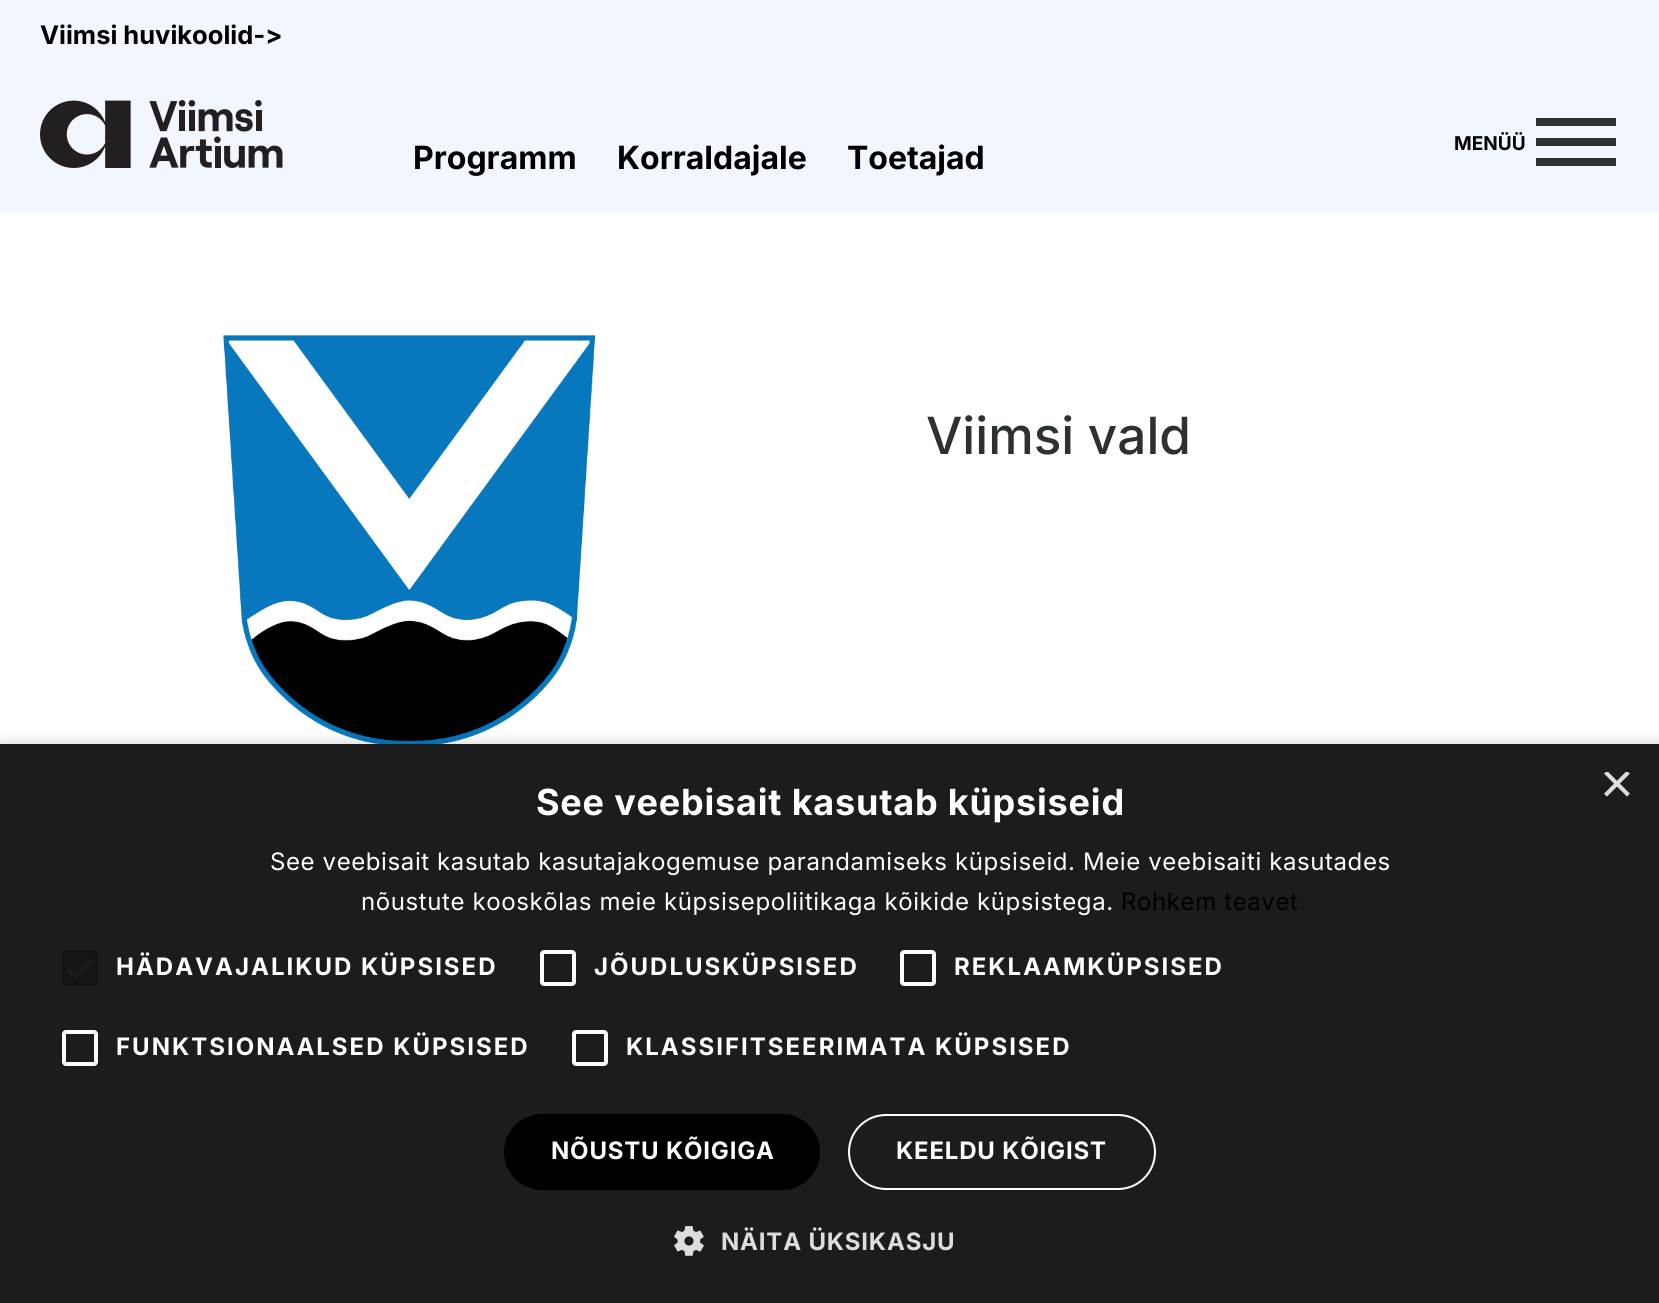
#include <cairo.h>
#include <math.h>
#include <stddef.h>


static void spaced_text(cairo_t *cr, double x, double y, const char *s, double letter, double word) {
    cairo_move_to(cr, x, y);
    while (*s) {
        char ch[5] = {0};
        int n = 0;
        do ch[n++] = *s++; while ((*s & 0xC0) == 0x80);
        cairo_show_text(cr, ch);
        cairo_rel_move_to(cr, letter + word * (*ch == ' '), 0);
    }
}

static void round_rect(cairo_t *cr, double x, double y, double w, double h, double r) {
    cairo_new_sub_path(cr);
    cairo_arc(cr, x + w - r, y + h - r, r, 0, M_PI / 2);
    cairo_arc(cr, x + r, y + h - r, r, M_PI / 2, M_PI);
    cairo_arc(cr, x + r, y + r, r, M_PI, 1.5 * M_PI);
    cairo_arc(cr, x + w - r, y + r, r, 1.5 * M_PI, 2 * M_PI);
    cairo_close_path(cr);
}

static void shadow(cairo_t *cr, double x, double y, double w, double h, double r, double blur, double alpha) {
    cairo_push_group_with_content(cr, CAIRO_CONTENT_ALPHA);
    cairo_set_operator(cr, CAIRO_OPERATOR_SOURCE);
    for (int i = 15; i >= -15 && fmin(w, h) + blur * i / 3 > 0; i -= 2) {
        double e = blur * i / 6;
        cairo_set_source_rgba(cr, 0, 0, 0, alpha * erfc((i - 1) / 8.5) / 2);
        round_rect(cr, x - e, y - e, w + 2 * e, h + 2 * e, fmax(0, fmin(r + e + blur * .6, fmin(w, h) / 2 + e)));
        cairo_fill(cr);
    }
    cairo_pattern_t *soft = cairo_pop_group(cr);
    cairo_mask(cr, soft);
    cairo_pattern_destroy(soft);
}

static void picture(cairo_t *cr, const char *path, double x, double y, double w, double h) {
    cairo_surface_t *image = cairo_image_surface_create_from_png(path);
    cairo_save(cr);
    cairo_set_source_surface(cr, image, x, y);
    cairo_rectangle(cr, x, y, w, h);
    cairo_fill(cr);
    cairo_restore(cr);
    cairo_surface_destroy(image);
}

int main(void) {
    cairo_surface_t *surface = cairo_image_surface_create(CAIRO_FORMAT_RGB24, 1659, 1303);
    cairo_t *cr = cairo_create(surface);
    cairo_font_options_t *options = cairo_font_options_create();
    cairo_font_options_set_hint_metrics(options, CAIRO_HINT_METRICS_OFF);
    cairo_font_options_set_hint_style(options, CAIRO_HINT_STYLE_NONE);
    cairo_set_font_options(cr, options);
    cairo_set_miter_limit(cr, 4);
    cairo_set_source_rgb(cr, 1, 1, 1);
    cairo_paint(cr);
    cairo_set_source_rgb(cr, 0.949, 0.961, 1);
    cairo_rectangle(cr, 0, 0, 1659, 212);
    cairo_fill(cr);
    cairo_select_font_face(cr, "Inter", CAIRO_FONT_SLANT_NORMAL, CAIRO_FONT_WEIGHT_BOLD);
    cairo_set_font_size(cr, 25.5);
    cairo_set_source_rgb(cr, 0, 0, 0);
    cairo_move_to(cr, 40, 44);
    cairo_show_text(cr, "Viimsi huvikoolid->");
    cairo_set_font_size(cr, 19);
    cairo_move_to(cr, 1454, 150);
    cairo_show_text(cr, "MENÜÜ");
    cairo_set_source_rgb(cr, 0.176, 0.192, 0.196);
    cairo_rectangle(cr, 1536, 138, 80, 8);
    cairo_fill(cr);
    cairo_rectangle(cr, 1536, 118, 80, 8);
    cairo_fill(cr);
    cairo_rectangle(cr, 1536, 158, 80, 8);
    cairo_fill(cr);
    picture(cr, "img1.png", 40, 100, 243, 68);
    cairo_set_font_size(cr, 32);
    cairo_set_source_rgb(cr, 0, 0, 0);
    cairo_move_to(cr, 413, 169);
    cairo_show_text(cr, "Programm");
    cairo_move_to(cr, 617, 169);
    cairo_show_text(cr, "Korraldajale");
    cairo_move_to(cr, 847, 169);
    cairo_show_text(cr, "Toetajad");
    picture(cr, "img2.png", 0, 252, 830, 492);
    cairo_select_font_face(cr, "Inter Medium", CAIRO_FONT_SLANT_NORMAL, CAIRO_FONT_WEIGHT_NORMAL);
    cairo_set_font_size(cr, 51.25);
    cairo_set_source_rgb(cr, 0.176, 0.192, 0.196);
    cairo_move_to(cr, 926, 454);
    cairo_show_text(cr, "Viimsi vald");
    cairo_set_source_rgb(cr, 0, 0, 0);
    shadow(cr, 2, 748, 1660, 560, 0, 8, 0.35);
    cairo_set_source_rgb(cr, 0.11, 0.11, 0.11);
    cairo_rectangle(cr, 0, 744, 1659, 559);
    cairo_fill(cr);
    cairo_save(cr);
    cairo_rectangle(cr, 1600, 772, 30, 30);
    cairo_clip(cr);
    cairo_select_font_face(cr, "Liberation Sans", CAIRO_FONT_SLANT_NORMAL, CAIRO_FONT_WEIGHT_NORMAL);
    cairo_set_font_size(cr, 58);
    cairo_set_source_rgb(cr, 0.867, 0.867, 0.867);
    cairo_move_to(cr, 1600, 803);
    cairo_show_text(cr, "×");
    cairo_restore(cr);
    cairo_select_font_face(cr, "Inter", CAIRO_FONT_SLANT_NORMAL, CAIRO_FONT_WEIGHT_BOLD);
    cairo_set_font_size(cr, 36);
    cairo_set_source_rgb(cr, 1, 1, 1);
    spaced_text(cr, 536, 815, "See veebisait kasutab küpsiseid", 0.8, 0);
    cairo_select_font_face(cr, "Inter", CAIRO_FONT_SLANT_NORMAL, CAIRO_FONT_WEIGHT_NORMAL);
    cairo_set_font_size(cr, 24);
    spaced_text(cr, 270, 870, "See veebisait kasutab kasutajakogemuse parandamiseks küpsiseid. Meie veebisaiti kasutades", 0.6, 0);
    spaced_text(cr, 361, 910, "nõustute kooskõlas meie küpsisepoliitikaga kõikide küpsistega.", 0.6, 0);
    cairo_set_source_rgb(cr, 0, 0, 0);
    spaced_text(cr, 1121, 910, "Rohkem teavet", 0.6, 0);
    cairo_set_source_rgb(cr, 0.082, 0.082, 0.082);
    round_rect(cr, 62, 950, 36, 36, 4);
    cairo_fill(cr);
    cairo_new_path(cr);
    cairo_move_to(cr, 68, 969);
    cairo_line_to(cr, 75.5, 976.5);
    cairo_line_to(cr, 92.5, 959.5);
    cairo_set_source_rgb(cr, 0.11, 0.11, 0.11);
    cairo_set_line_width(cr, 3.6);
    cairo_stroke(cr);
    cairo_select_font_face(cr, "Inter", CAIRO_FONT_SLANT_NORMAL, CAIRO_FONT_WEIGHT_BOLD);
    cairo_set_source_rgb(cr, 1, 1, 1);
    spaced_text(cr, 116, 975, "HÄDAVAJALIKUD KÜPSISED", 2, 0);
    round_rect(cr, 542, 952, 32, 32, 2);
    cairo_set_line_width(cr, 4);
    cairo_stroke(cr);
    spaced_text(cr, 594, 975, "JÕUDLUSKÜPSISED", 2, 0);
    round_rect(cr, 902, 952, 32, 32, 2);
    cairo_stroke(cr);
    spaced_text(cr, 954, 975, "REKLAAMKÜPSISED", 2, 0);
    round_rect(cr, 64, 1032, 32, 32, 2);
    cairo_stroke(cr);
    spaced_text(cr, 116, 1055, "FUNKTSIONAALSED KÜPSISED", 2, 0);
    round_rect(cr, 574, 1032, 32, 32, 2);
    cairo_stroke(cr);
    spaced_text(cr, 626, 1055, "KLASSIFITSEERIMATA KÜPSISED", 2, 0);
    cairo_set_source_rgb(cr, 0, 0, 0);
    round_rect(cr, 504, 1114, 316, 76, 38);
    cairo_fill(cr);
    cairo_set_source_rgb(cr, 1, 1, 1);
    spaced_text(cr, 551, 1159, "NÕUSTU KÕIGIGA", 0.8, 0);
    round_rect(cr, 849, 1115, 306, 74, 37);
    cairo_set_line_width(cr, 2);
    cairo_stroke(cr);
    spaced_text(cr, 896, 1159, "KEELDU KÕIGIST", 0.8, 0);
    picture(cr, "img3.png", 674, 1226, 30, 30);
    cairo_set_source_rgb(cr, 0.867, 0.867, 0.867);
    spaced_text(cr, 721, 1250, "NÄITA ÜKSIKASJU", 0.8, 0);
    cairo_surface_write_to_png(surface, "page.png");
    cairo_font_options_destroy(options);
    cairo_destroy(cr);
    cairo_surface_destroy(surface);
    return 0;
}
